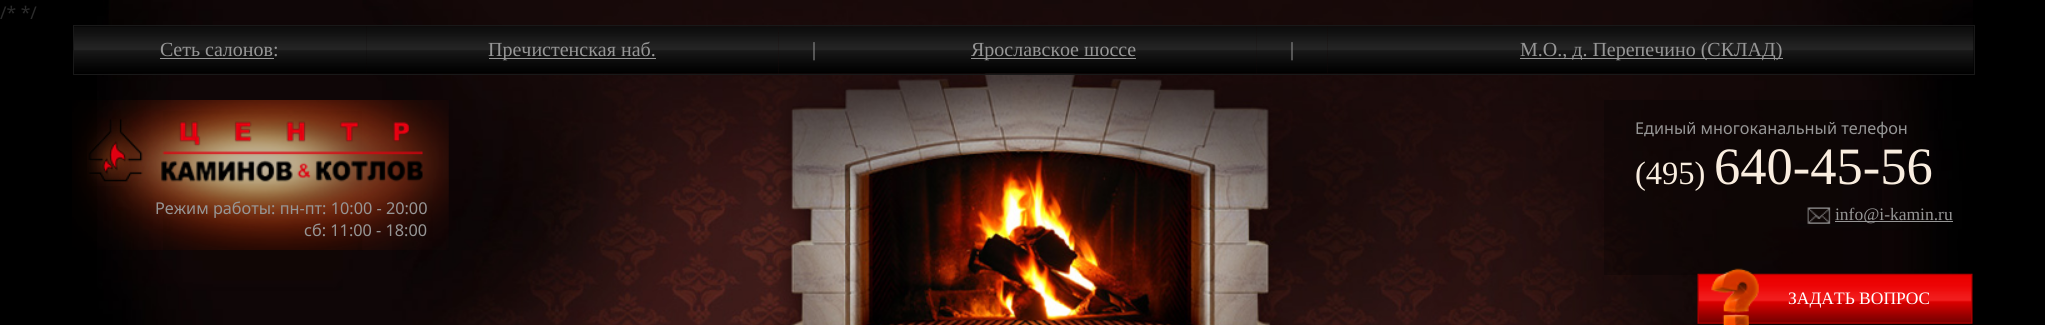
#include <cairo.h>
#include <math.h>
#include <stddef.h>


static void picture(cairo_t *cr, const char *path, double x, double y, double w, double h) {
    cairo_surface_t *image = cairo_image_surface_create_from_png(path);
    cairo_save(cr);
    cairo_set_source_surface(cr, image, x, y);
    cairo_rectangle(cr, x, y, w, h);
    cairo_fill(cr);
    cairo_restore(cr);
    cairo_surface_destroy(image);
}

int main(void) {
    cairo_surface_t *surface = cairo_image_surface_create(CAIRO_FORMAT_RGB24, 2045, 325);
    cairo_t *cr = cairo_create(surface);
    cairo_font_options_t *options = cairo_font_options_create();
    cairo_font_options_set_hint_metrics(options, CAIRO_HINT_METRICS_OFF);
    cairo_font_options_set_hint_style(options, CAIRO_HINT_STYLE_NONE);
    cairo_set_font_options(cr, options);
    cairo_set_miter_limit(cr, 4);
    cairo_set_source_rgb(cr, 0, 0, 0);
    cairo_paint(cr);
    cairo_select_font_face(cr, "Noto Sans", CAIRO_FONT_SLANT_NORMAL, CAIRO_FONT_WEIGHT_NORMAL);
    cairo_set_font_size(cr, 17.5);
    cairo_set_source_rgb(cr, 0.169, 0.169, 0.169);
    cairo_move_to(cr, 0, 19);
    cairo_show_text(cr, "/* */");
    picture(cr, "img1.png", 97, 0, 1876, 325);
    cairo_rectangle(cr, 73.5, 25.5, 1901, 49);
    cairo_set_source_rgb(cr, 0.098, 0.098, 0.098);
    cairo_set_line_width(cr, 1);
    cairo_stroke(cr);
    picture(cr, "img2.png", 74, 26, 293, 48);
    cairo_select_font_face(cr, "Liberation Serif", CAIRO_FONT_SLANT_NORMAL, CAIRO_FONT_WEIGHT_NORMAL);
    cairo_set_font_size(cr, 20);
    cairo_set_source_rgb(cr, 0.588, 0.588, 0.588);
    cairo_move_to(cr, 160, 56);
    cairo_show_text(cr, "Сеть салонов:");
    cairo_rectangle(cr, 160, 58, 114, 1);
    cairo_fill(cr);
    picture(cr, "img3.png", 366, 26, 413, 48);
    cairo_rectangle(cr, 489, 58, 167, 1);
    cairo_fill(cr);
    cairo_move_to(cr, 488, 56);
    cairo_show_text(cr, "Пречистенская наб.");
    picture(cr, "img4.png", 779, 26, 71, 48);
    cairo_move_to(cr, 812, 56);
    cairo_show_text(cr, "|");
    picture(cr, "img5.png", 850, 26, 407, 48);
    cairo_rectangle(cr, 971, 58, 165, 1);
    cairo_fill(cr);
    cairo_move_to(cr, 971, 56);
    cairo_show_text(cr, "Ярославское шоссе");
    picture(cr, "img6.png", 1256, 26, 72, 48);
    cairo_move_to(cr, 1290, 56);
    cairo_show_text(cr, "|");
    picture(cr, "img7.png", 1327, 26, 647, 48);
    cairo_rectangle(cr, 1520, 58, 263, 1);
    cairo_fill(cr);
    cairo_move_to(cr, 1520, 56);
    cairo_show_text(cr, "М.О., д. Перепечино (СКЛАД)");
    cairo_set_source_rgba(cr, 0, 0, 0, 0.25);
    cairo_rectangle(cr, 163, 111, 199, 139);
    cairo_fill(cr);
    picture(cr, "img8.png", 72, 100, 377, 150);
    picture(cr, "img9.png", 87, 119, 336, 67);
    cairo_select_font_face(cr, "Noto Sans", CAIRO_FONT_SLANT_NORMAL, CAIRO_FONT_WEIGHT_NORMAL);
    cairo_set_font_size(cr, 16.25);
    cairo_set_source_rgb(cr, 0.588, 0.588, 0.588);
    cairo_move_to(cr, 155, 214);
    cairo_show_text(cr, "Режим работы: пн-пт: 10:00 - 20:00");
    cairo_move_to(cr, 304, 236);
    cairo_show_text(cr, "сб: 11:00 - 18:00");
    cairo_set_source_rgba(cr, 0, 0, 0, 0.25);
    cairo_rectangle(cr, 1604, 100, 278, 175);
    cairo_fill(cr);
    cairo_set_source_rgb(cr, 0.588, 0.588, 0.588);
    cairo_move_to(cr, 1635, 134);
    cairo_show_text(cr, "Единый многоканальный телефон");
    cairo_select_font_face(cr, "Liberation Serif", CAIRO_FONT_SLANT_NORMAL, CAIRO_FONT_WEIGHT_NORMAL);
    cairo_set_font_size(cr, 32.5);
    cairo_set_source_rgb(cr, 0.976, 0.929, 0.875);
    cairo_move_to(cr, 1635, 184);
    cairo_show_text(cr, "(495)");
    cairo_set_font_size(cr, 52.5);
    cairo_move_to(cr, 1714, 184);
    cairo_show_text(cr, "640-45-56");
    picture(cr, "img10.png", 1807, 207, 24, 19);
    cairo_set_source_rgb(cr, 0.588, 0.588, 0.588);
    cairo_rectangle(cr, 1835, 221, 118, 1);
    cairo_fill(cr);
    cairo_set_font_size(cr, 17.5);
    cairo_move_to(cr, 1835, 220);
    cairo_show_text(cr, "info@i-kamin.ru");
    picture(cr, "img11.png", 1697, 268, 276, 57);
    cairo_set_source_rgb(cr, 1, 1, 1);
    cairo_move_to(cr, 1788, 304);
    cairo_show_text(cr, "ЗАДАТЬ ВОПРОС");
    cairo_surface_write_to_png(surface, "page.png");
    cairo_font_options_destroy(options);
    cairo_destroy(cr);
    cairo_surface_destroy(surface);
    return 0;
}
